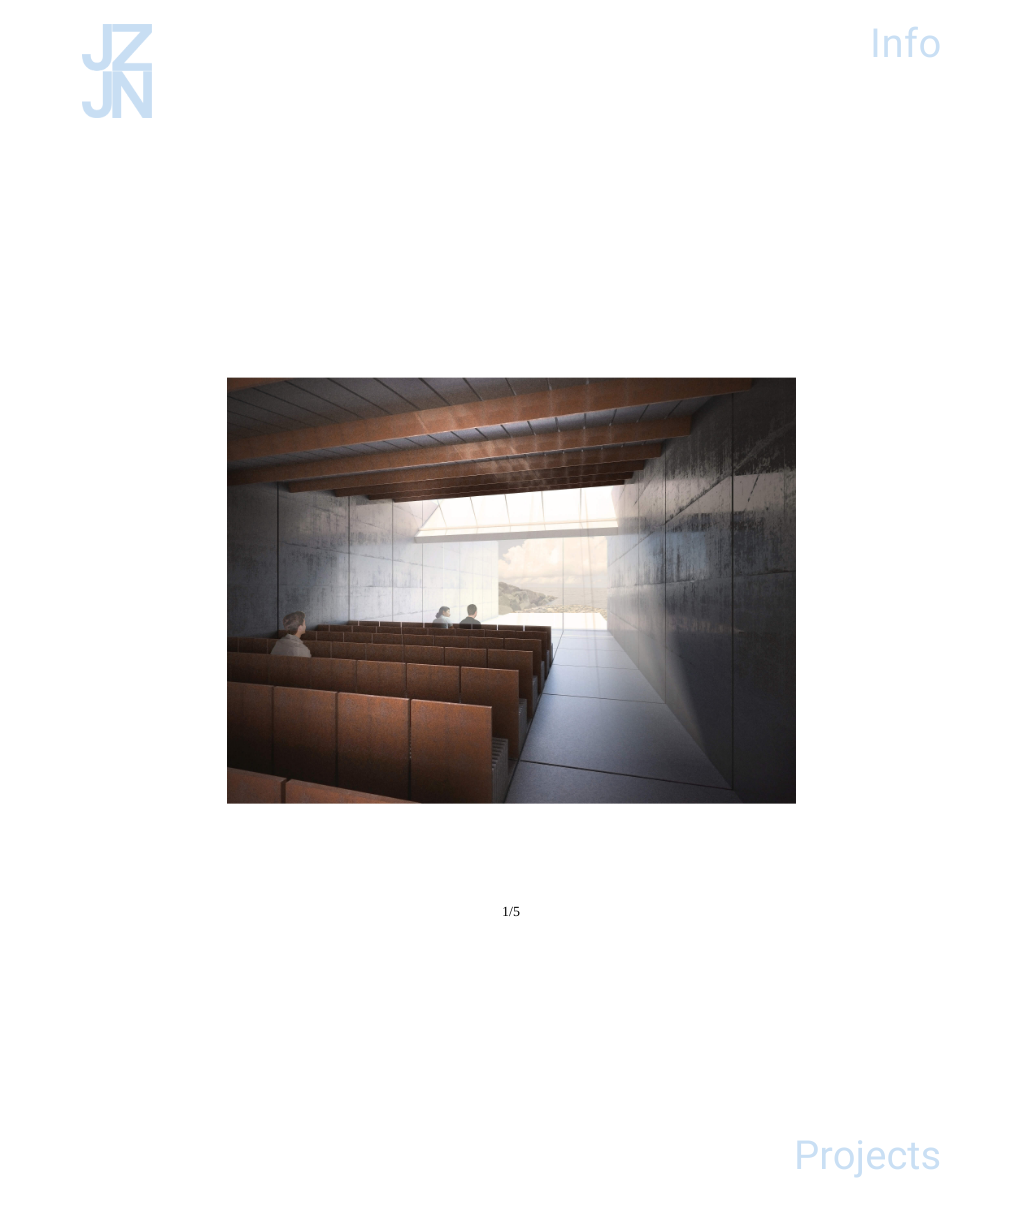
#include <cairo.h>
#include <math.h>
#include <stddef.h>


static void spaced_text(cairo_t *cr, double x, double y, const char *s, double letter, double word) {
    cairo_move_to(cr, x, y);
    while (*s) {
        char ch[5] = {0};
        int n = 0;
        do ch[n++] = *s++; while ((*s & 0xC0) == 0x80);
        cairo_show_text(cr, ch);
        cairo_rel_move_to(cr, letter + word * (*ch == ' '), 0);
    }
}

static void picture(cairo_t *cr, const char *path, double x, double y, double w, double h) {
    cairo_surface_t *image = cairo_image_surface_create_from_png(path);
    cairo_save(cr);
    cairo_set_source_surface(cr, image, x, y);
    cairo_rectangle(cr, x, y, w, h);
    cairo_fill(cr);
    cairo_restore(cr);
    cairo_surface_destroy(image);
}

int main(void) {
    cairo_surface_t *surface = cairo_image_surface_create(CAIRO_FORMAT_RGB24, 1023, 1216);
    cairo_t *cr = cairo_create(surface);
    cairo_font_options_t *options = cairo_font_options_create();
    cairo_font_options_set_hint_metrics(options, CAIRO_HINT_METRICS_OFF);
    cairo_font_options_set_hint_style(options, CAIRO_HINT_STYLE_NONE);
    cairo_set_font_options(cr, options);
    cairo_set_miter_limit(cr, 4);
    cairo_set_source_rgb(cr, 1, 1, 1);
    cairo_paint(cr);
    picture(cr, "img1.png", 82, 24, 70, 94);
    cairo_select_font_face(cr, "Roboto", CAIRO_FONT_SLANT_NORMAL, CAIRO_FONT_WEIGHT_NORMAL);
    cairo_set_font_size(cr, 40);
    cairo_set_source_rgb(cr, 0.788, 0.875, 0.957);
    spaced_text(cr, 870, 57, "Info", 0.5, 0);
    picture(cr, "img2.png", 227, 377, 569, 427);
    cairo_select_font_face(cr, "Liberation Serif", CAIRO_FONT_SLANT_NORMAL, CAIRO_FONT_WEIGHT_NORMAL);
    cairo_set_font_size(cr, 14);
    cairo_set_source_rgb(cr, 0, 0, 0);
    cairo_move_to(cr, 502, 916);
    cairo_show_text(cr, "1/5");
    cairo_select_font_face(cr, "Roboto", CAIRO_FONT_SLANT_NORMAL, CAIRO_FONT_WEIGHT_NORMAL);
    cairo_set_font_size(cr, 40);
    cairo_set_source_rgb(cr, 0.788, 0.875, 0.957);
    cairo_move_to(cr, 794, 1169);
    cairo_show_text(cr, "Projects");
    cairo_surface_write_to_png(surface, "page.png");
    cairo_font_options_destroy(options);
    cairo_destroy(cr);
    cairo_surface_destroy(surface);
    return 0;
}
